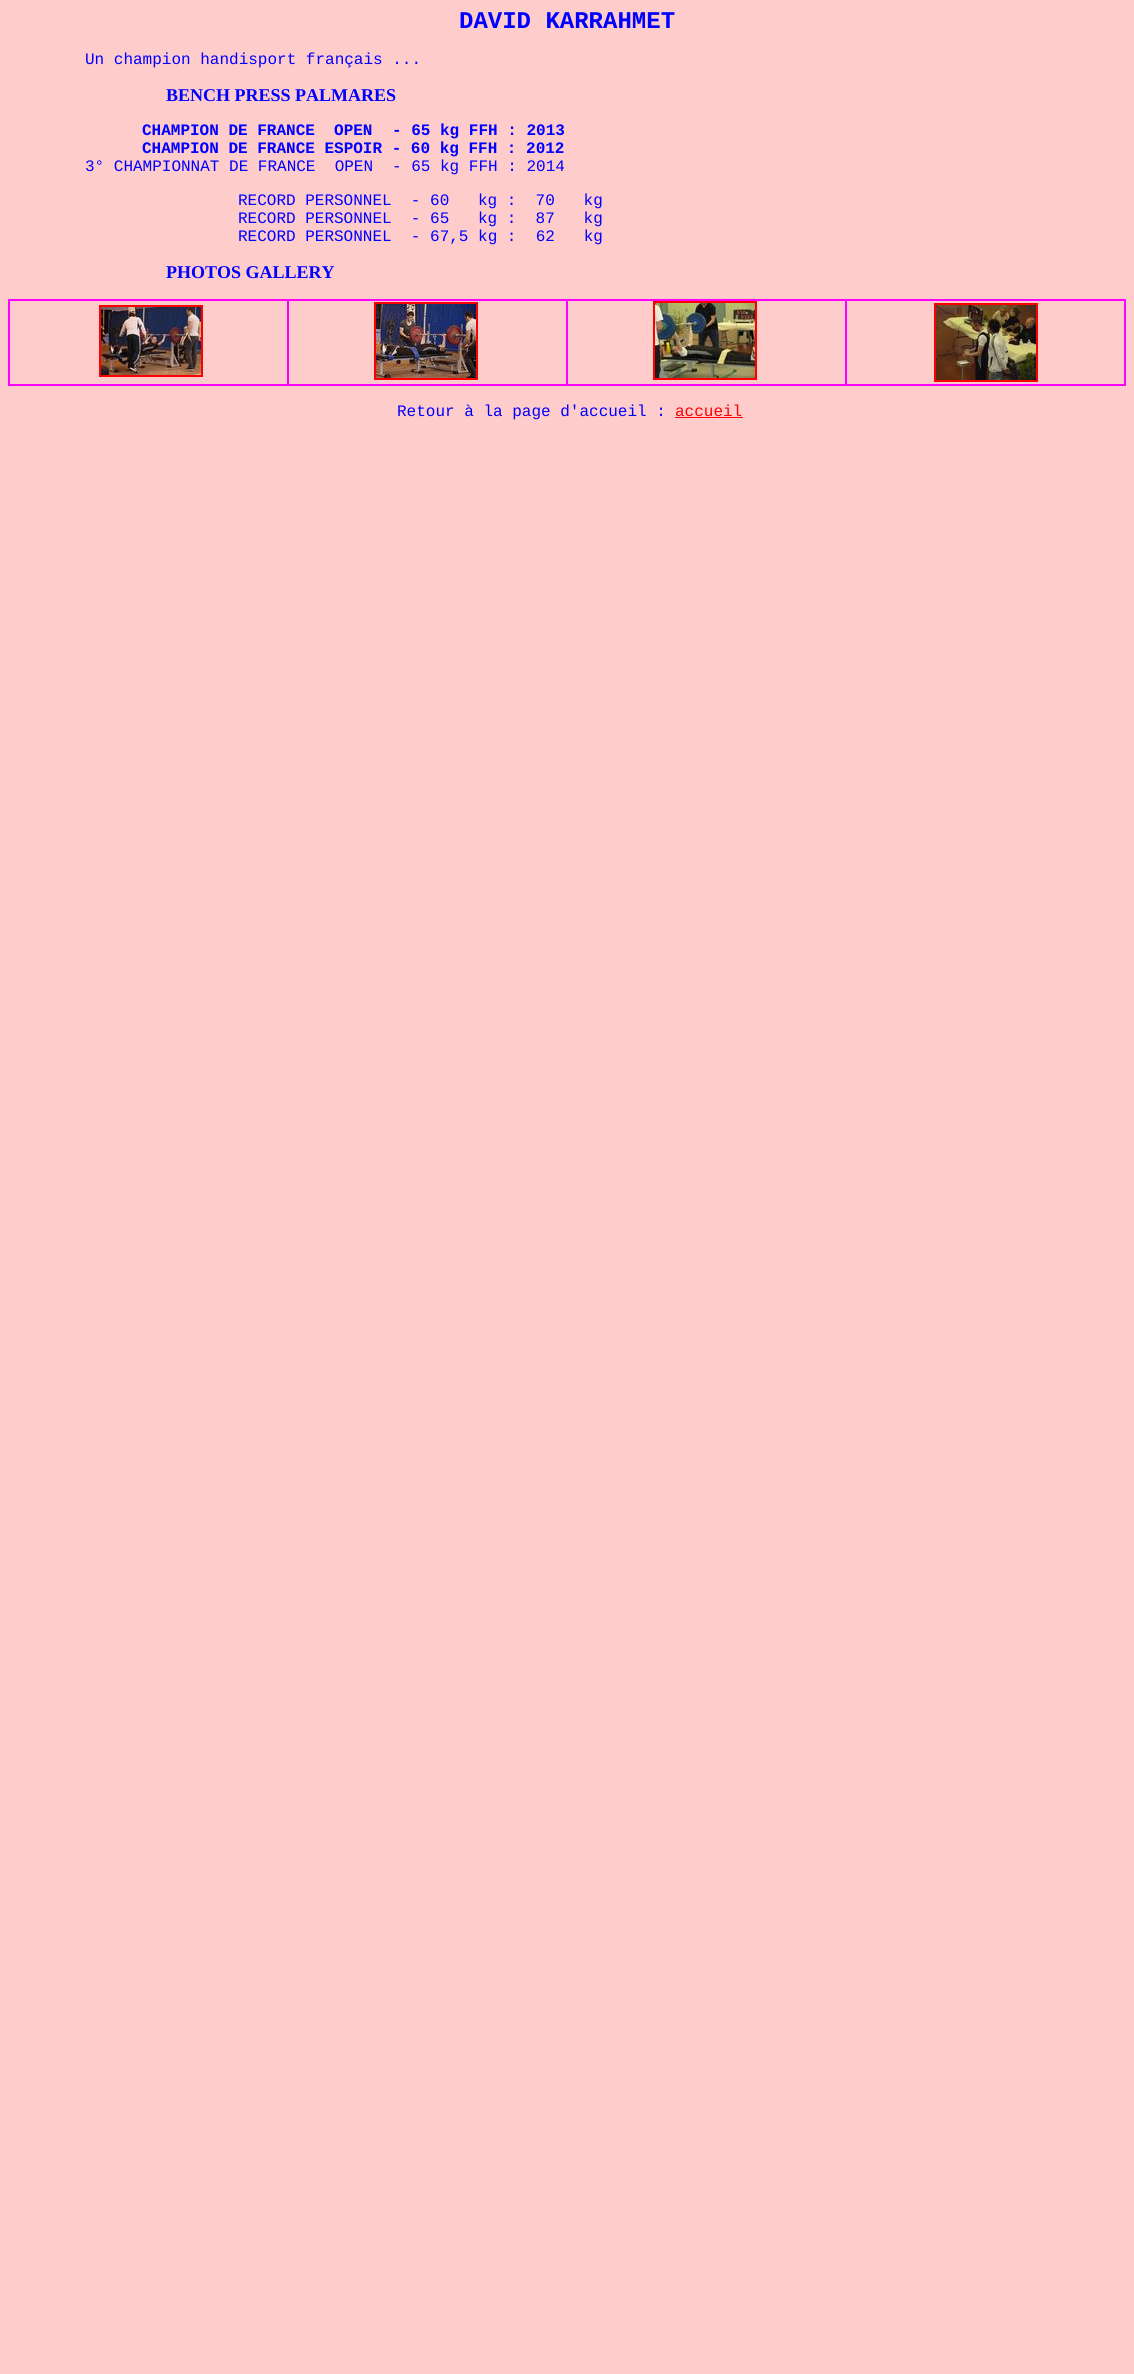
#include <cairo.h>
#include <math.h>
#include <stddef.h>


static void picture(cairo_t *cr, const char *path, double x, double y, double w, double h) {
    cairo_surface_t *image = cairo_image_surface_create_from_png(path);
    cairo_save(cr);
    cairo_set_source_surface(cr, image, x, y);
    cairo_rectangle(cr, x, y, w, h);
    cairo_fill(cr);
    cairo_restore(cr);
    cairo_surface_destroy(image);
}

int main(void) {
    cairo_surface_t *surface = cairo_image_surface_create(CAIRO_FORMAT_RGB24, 1134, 2374);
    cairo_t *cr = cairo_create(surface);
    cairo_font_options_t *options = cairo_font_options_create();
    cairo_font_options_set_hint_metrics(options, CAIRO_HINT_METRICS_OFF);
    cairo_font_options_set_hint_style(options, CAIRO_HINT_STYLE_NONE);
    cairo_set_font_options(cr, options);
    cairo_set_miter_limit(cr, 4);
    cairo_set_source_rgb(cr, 1, 0.8, 0.8);
    cairo_paint(cr);
    cairo_select_font_face(cr, "Liberation Mono", CAIRO_FONT_SLANT_NORMAL, CAIRO_FONT_WEIGHT_BOLD);
    cairo_set_font_size(cr, 24);
    cairo_set_source_rgb(cr, 0, 0, 1);
    cairo_move_to(cr, 459, 28);
    cairo_show_text(cr, "DAVID KARRAHMET");
    cairo_select_font_face(cr, "Liberation Mono", CAIRO_FONT_SLANT_NORMAL, CAIRO_FONT_WEIGHT_NORMAL);
    cairo_set_font_size(cr, 16);
    cairo_move_to(cr, 85, 64);
    cairo_show_text(cr, "Un champion handisport français ...");
    cairo_select_font_face(cr, "Liberation Serif", CAIRO_FONT_SLANT_NORMAL, CAIRO_FONT_WEIGHT_BOLD);
    cairo_set_font_size(cr, 18);
    cairo_move_to(cr, 166, 101);
    cairo_show_text(cr, "BENCH PRESS PALMARES");
    cairo_select_font_face(cr, "Liberation Mono", CAIRO_FONT_SLANT_NORMAL, CAIRO_FONT_WEIGHT_BOLD);
    cairo_set_font_size(cr, 16);
    cairo_move_to(cr, 142, 135);
    cairo_show_text(cr, "CHAMPION DE FRANCE  OPEN");
    cairo_move_to(cr, 392, 135);
    cairo_show_text(cr, "- 65 kg FFH : 2013");
    cairo_move_to(cr, 142, 153);
    cairo_show_text(cr, "CHAMPION DE FRANCE ESPOIR - 60 kg FFH : 2012");
    cairo_select_font_face(cr, "Liberation Mono", CAIRO_FONT_SLANT_NORMAL, CAIRO_FONT_WEIGHT_NORMAL);
    cairo_move_to(cr, 85, 171);
    cairo_show_text(cr, "3° CHAMPIONNAT DE FRANCE  OPEN");
    cairo_move_to(cr, 392, 171);
    cairo_show_text(cr, "- 65 kg FFH : 2014");
    cairo_move_to(cr, 238, 205);
    cairo_show_text(cr, "RECORD PERSONNEL  - 60");
    cairo_move_to(cr, 478, 205);
    cairo_show_text(cr, "kg :  70   kg");
    cairo_move_to(cr, 238, 223);
    cairo_show_text(cr, "RECORD PERSONNEL  - 65");
    cairo_move_to(cr, 478, 223);
    cairo_show_text(cr, "kg :  87   kg");
    cairo_move_to(cr, 238, 241);
    cairo_show_text(cr, "RECORD PERSONNEL  - 67,5 kg :  62   kg");
    cairo_select_font_face(cr, "Liberation Serif", CAIRO_FONT_SLANT_NORMAL, CAIRO_FONT_WEIGHT_BOLD);
    cairo_set_font_size(cr, 18);
    cairo_move_to(cr, 166, 278);
    cairo_show_text(cr, "PHOTOS GALLERY");
    cairo_rectangle(cr, 8.5, 299.5, 1117, 86);
    cairo_set_source_rgb(cr, 1, 0, 1);
    cairo_set_line_width(cr, 1);
    cairo_stroke(cr);
    cairo_rectangle(cr, 9.5, 300.5, 278, 84);
    cairo_stroke(cr);
    cairo_rectangle(cr, 100, 306, 102, 70);
    cairo_set_source_rgb(cr, 1, 0, 0);
    cairo_set_line_width(cr, 2);
    cairo_stroke(cr);
    picture(cr, "img1.png", 101, 307, 100, 68);
    cairo_rectangle(cr, 288.5, 300.5, 278, 84);
    cairo_set_source_rgb(cr, 1, 0, 1);
    cairo_set_line_width(cr, 1);
    cairo_stroke(cr);
    cairo_rectangle(cr, 375, 303, 102, 76);
    cairo_set_source_rgb(cr, 1, 0, 0);
    cairo_set_line_width(cr, 2);
    cairo_stroke(cr);
    picture(cr, "img2.png", 376, 304, 100, 74);
    cairo_rectangle(cr, 567.5, 300.5, 278, 84);
    cairo_set_source_rgb(cr, 1, 0, 1);
    cairo_set_line_width(cr, 1);
    cairo_stroke(cr);
    cairo_rectangle(cr, 654, 302, 102, 77);
    cairo_set_source_rgb(cr, 1, 0, 0);
    cairo_set_line_width(cr, 2);
    cairo_stroke(cr);
    picture(cr, "img3.png", 655, 303, 100, 75);
    cairo_rectangle(cr, 846.5, 300.5, 278, 84);
    cairo_set_source_rgb(cr, 1, 0, 1);
    cairo_set_line_width(cr, 1);
    cairo_stroke(cr);
    cairo_rectangle(cr, 935, 304, 102, 77);
    cairo_set_source_rgb(cr, 1, 0, 0);
    cairo_set_line_width(cr, 2);
    cairo_stroke(cr);
    picture(cr, "img4.png", 936, 305, 100, 75);
    cairo_select_font_face(cr, "Liberation Mono", CAIRO_FONT_SLANT_NORMAL, CAIRO_FONT_WEIGHT_NORMAL);
    cairo_set_font_size(cr, 16);
    cairo_set_source_rgb(cr, 0, 0, 1);
    cairo_move_to(cr, 397, 416);
    cairo_show_text(cr, "Retour à la page d'accueil :");
    cairo_set_source_rgb(cr, 1, 0, 0);
    cairo_move_to(cr, 675, 416);
    cairo_show_text(cr, "accueil");
    cairo_rectangle(cr, 675, 417, 68, 1);
    cairo_fill(cr);
    cairo_surface_write_to_png(surface, "page.png");
    cairo_font_options_destroy(options);
    cairo_destroy(cr);
    cairo_surface_destroy(surface);
    return 0;
}
